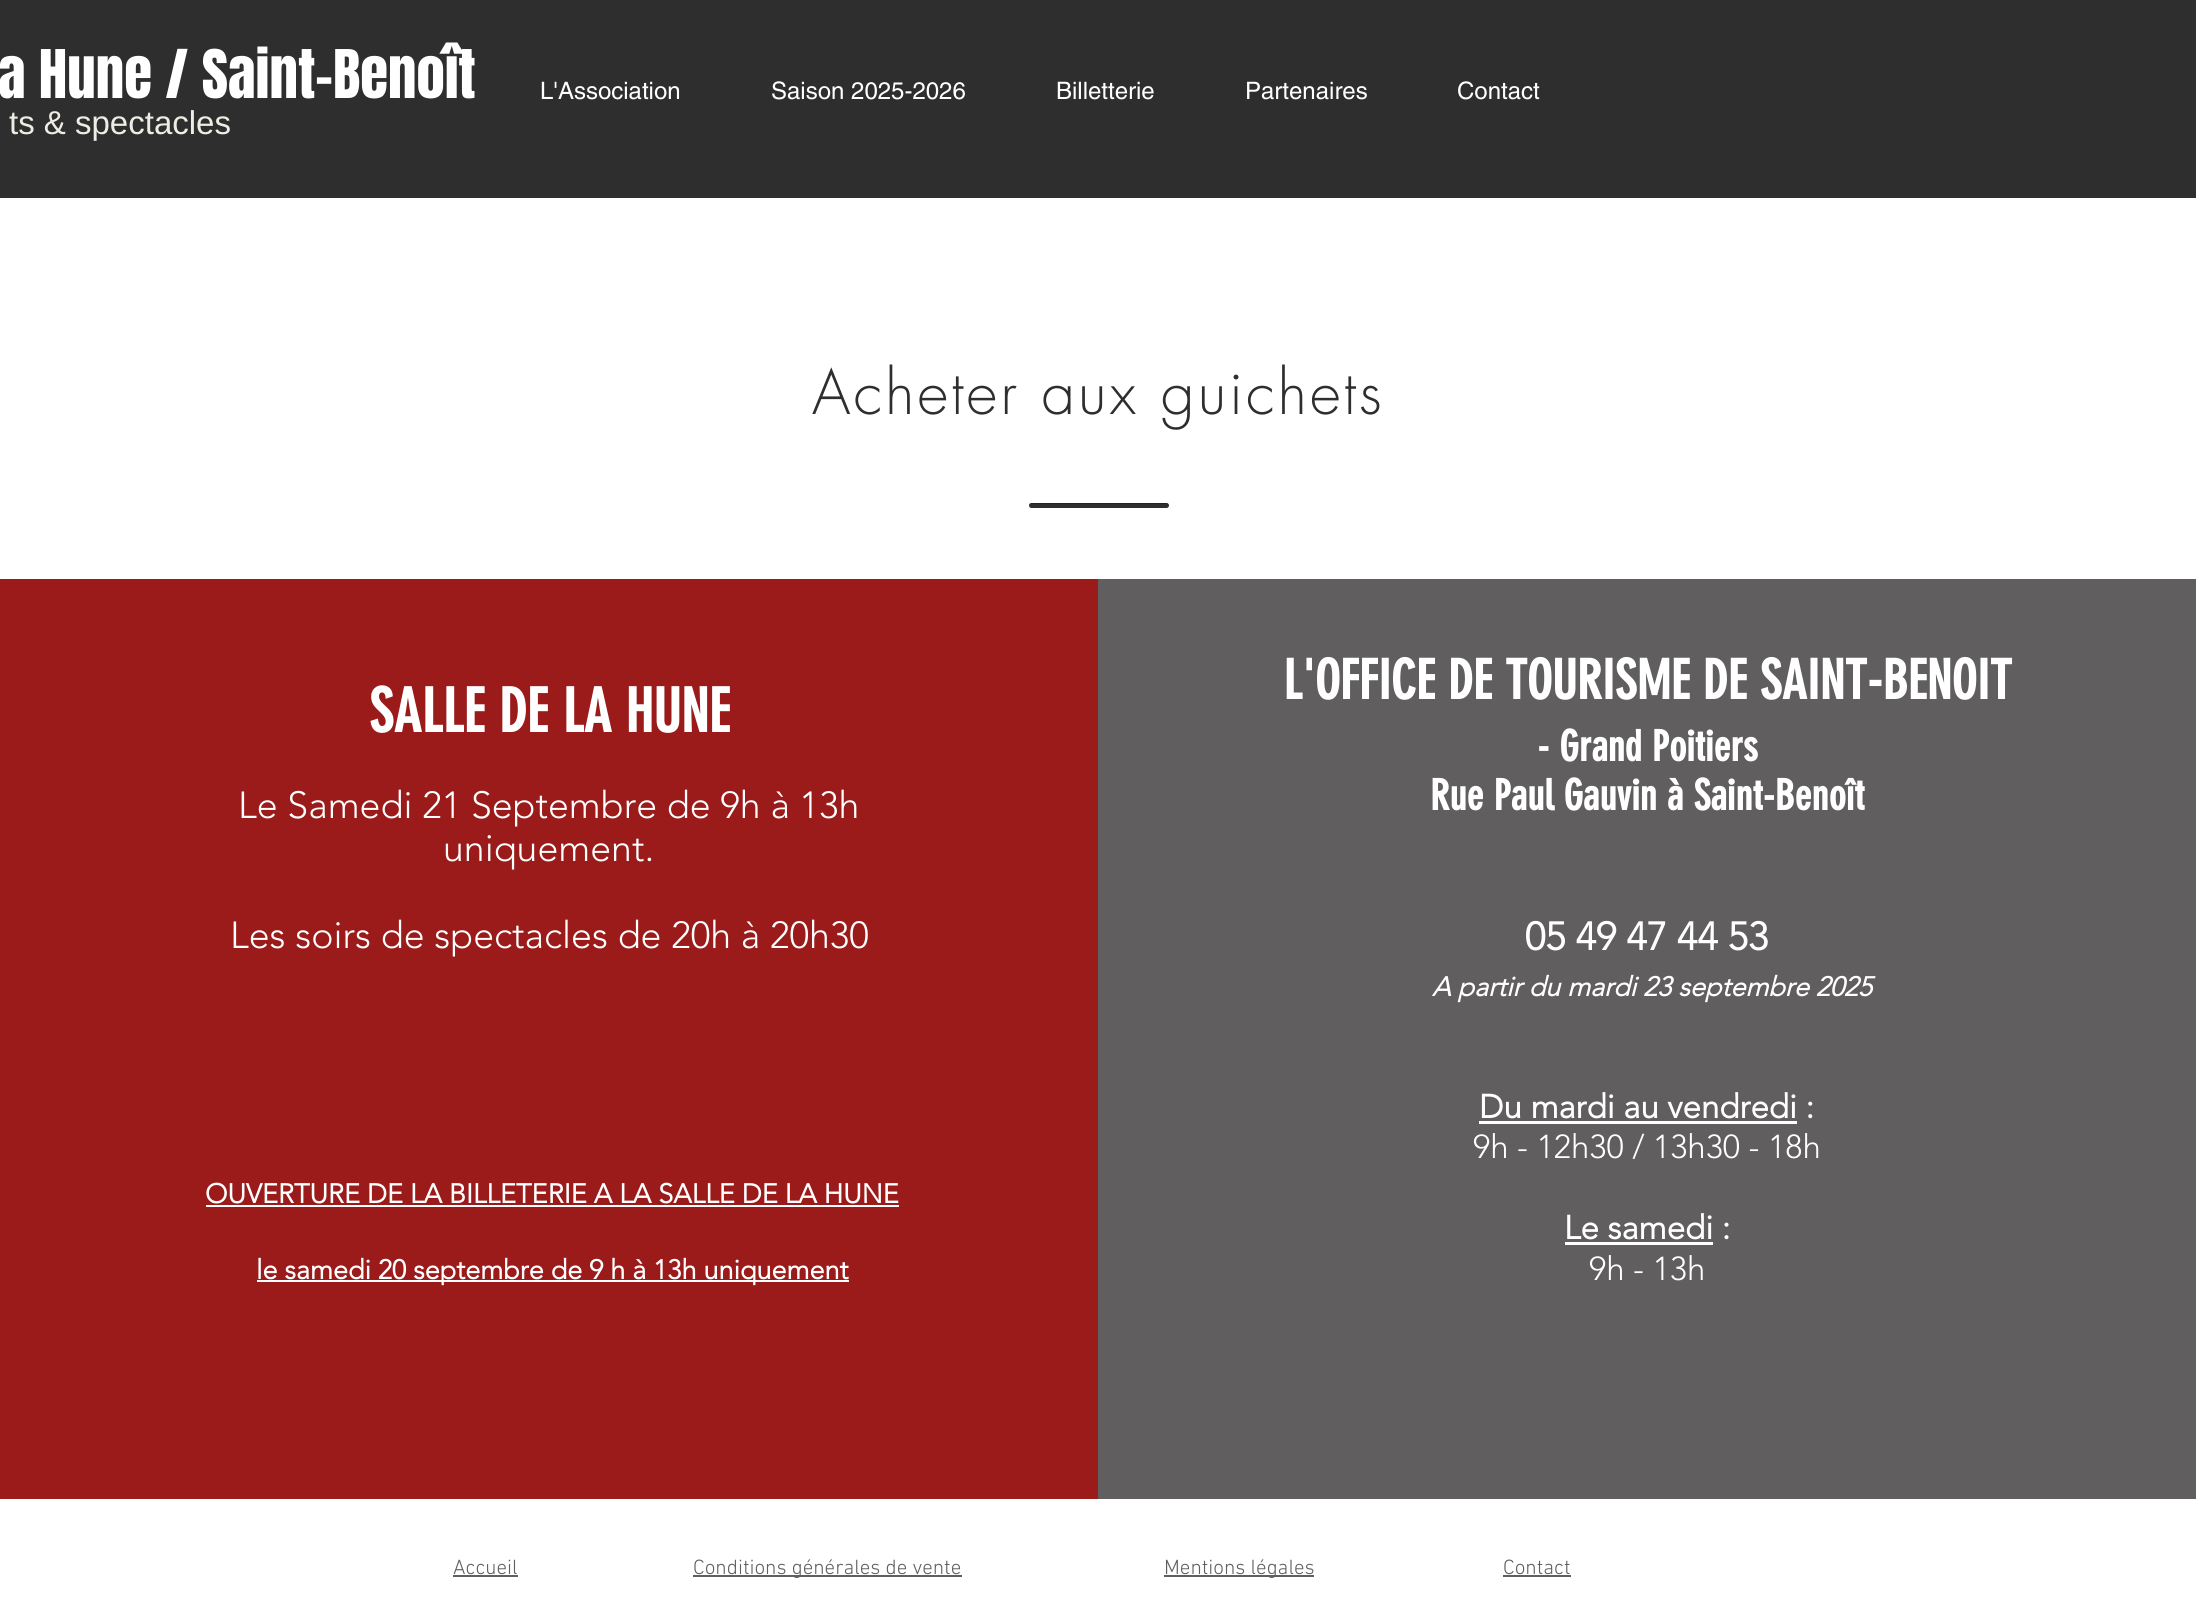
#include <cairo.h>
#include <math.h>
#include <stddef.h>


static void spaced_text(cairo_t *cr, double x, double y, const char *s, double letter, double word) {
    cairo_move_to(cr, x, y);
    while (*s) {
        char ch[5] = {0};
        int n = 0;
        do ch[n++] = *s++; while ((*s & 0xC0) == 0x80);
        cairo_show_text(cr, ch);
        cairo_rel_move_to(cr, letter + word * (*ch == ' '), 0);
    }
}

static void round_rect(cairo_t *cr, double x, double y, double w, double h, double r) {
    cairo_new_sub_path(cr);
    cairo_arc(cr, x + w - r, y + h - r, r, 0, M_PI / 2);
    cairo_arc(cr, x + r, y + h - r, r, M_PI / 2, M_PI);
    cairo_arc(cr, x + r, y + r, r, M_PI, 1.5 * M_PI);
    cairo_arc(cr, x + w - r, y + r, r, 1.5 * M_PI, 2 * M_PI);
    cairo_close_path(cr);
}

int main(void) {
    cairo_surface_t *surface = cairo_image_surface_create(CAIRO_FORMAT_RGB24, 2196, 1618);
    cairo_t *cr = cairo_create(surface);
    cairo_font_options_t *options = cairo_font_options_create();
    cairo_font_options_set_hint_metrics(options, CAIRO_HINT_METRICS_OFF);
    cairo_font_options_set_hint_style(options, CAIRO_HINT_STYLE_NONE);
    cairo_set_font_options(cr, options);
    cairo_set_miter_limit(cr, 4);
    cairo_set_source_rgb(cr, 1, 1, 1);
    cairo_paint(cr);
    cairo_set_source_rgb(cr, 0.184, 0.18, 0.18);
    cairo_rectangle(cr, 0, 0, 2196, 198);
    cairo_fill(cr);
    cairo_select_font_face(cr, "Anton", CAIRO_FONT_SLANT_NORMAL, CAIRO_FONT_WEIGHT_NORMAL);
    cairo_set_font_size(cr, 57);
    cairo_set_source_rgb(cr, 1, 1, 1);
    cairo_move_to(cr, -2, 98);
    cairo_show_text(cr, "a Hune / Saint-Benoît");
    cairo_select_font_face(cr, "Liberation Sans", CAIRO_FONT_SLANT_NORMAL, CAIRO_FONT_WEIGHT_NORMAL);
    cairo_set_font_size(cr, 33);
    cairo_set_source_rgb(cr, 0.929, 0.929, 0.894);
    cairo_move_to(cr, 9, 134);
    cairo_show_text(cr, "ts & spectacles");
    cairo_select_font_face(cr, "helvetica", CAIRO_FONT_SLANT_NORMAL, CAIRO_FONT_WEIGHT_NORMAL);
    cairo_set_font_size(cr, 24);
    cairo_set_source_rgb(cr, 1, 1, 1);
    cairo_move_to(cr, 540, 99);
    cairo_show_text(cr, "L'Association");
    cairo_move_to(cr, 771, 99);
    cairo_show_text(cr, "Saison 2025-2026");
    cairo_move_to(cr, 1056, 99);
    cairo_show_text(cr, "Billetterie");
    cairo_move_to(cr, 1245, 99);
    cairo_show_text(cr, "Partenaires");
    cairo_move_to(cr, 1457, 99);
    cairo_show_text(cr, "Contact");
    cairo_select_font_face(cr, "futura Light", CAIRO_FONT_SLANT_NORMAL, CAIRO_FONT_WEIGHT_NORMAL);
    cairo_set_font_size(cr, 60);
    cairo_set_source_rgb(cr, 0.184, 0.18, 0.18);
    spaced_text(cr, 812, 414, "Acheter aux guichets", 3, 0);
    round_rect(cr, 1029, 503, 140, 5, 2.5);
    cairo_fill(cr);
    cairo_set_source_rgba(cr, 0, 0, 0, 0.25);
    cairo_new_path(cr);
    cairo_move_to(cr, 1031, 504);
    cairo_line_to(cr, 1167, 504);
    cairo_curve_to(cr, 1168, 504, 1169, 506, 1168, 507);
    cairo_curve_to(cr, 1169, 506, 1169, 504, 1167, 503);
    cairo_line_to(cr, 1032, 503);
    cairo_curve_to(cr, 1030, 503, 1029, 504, 1029, 505);
    cairo_close_path(cr);
    cairo_fill(cr);
    cairo_set_source_rgb(cr, 0.608, 0.106, 0.106);
    cairo_rectangle(cr, 0, 579, 1098, 920);
    cairo_fill(cr);
    cairo_select_font_face(cr, "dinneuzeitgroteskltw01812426", CAIRO_FONT_SLANT_NORMAL, CAIRO_FONT_WEIGHT_BOLD);
    cairo_set_source_rgb(cr, 1, 1, 1);
    cairo_move_to(cr, 369, 732);
    cairo_show_text(cr, "SALLE DE LA HUNE");
    cairo_select_font_face(cr, "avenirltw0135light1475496 Light", CAIRO_FONT_SLANT_NORMAL, CAIRO_FONT_WEIGHT_NORMAL);
    cairo_set_font_size(cr, 37.5);
    cairo_move_to(cr, 238, 818);
    cairo_show_text(cr, "Le Samedi 21 Septembre de 9h à 13h");
    cairo_move_to(cr, 443, 861);
    cairo_show_text(cr, "uniquement.");
    cairo_move_to(cr, 230, 948);
    cairo_show_text(cr, "Les soirs de spectacles de 20h à 20h30");
    cairo_select_font_face(cr, "avenirltw0135light1475496", CAIRO_FONT_SLANT_NORMAL, CAIRO_FONT_WEIGHT_BOLD);
    cairo_set_font_size(cr, 27);
    cairo_move_to(cr, 205, 1203);
    cairo_show_text(cr, "OUVERTURE DE LA BILLETERIE A LA SALLE DE LA HUNE");
    cairo_rectangle(cr, 206, 1205, 693, 2);
    cairo_fill(cr);
    cairo_rectangle(cr, 257, 1280, 592, 2);
    cairo_fill(cr);
    cairo_move_to(cr, 256, 1279);
    cairo_show_text(cr, "le samedi 20 septembre de 9 h à 13h uniquement");
    cairo_set_source_rgb(cr, 0.376, 0.369, 0.369);
    cairo_rectangle(cr, 1098, 579, 1098, 920);
    cairo_fill(cr);
    cairo_select_font_face(cr, "dinneuzeitgroteskltw01812426", CAIRO_FONT_SLANT_NORMAL, CAIRO_FONT_WEIGHT_BOLD);
    cairo_set_font_size(cr, 54);
    cairo_set_source_rgb(cr, 1, 1, 1);
    cairo_move_to(cr, 1283, 699);
    cairo_show_text(cr, "L'OFFICE DE TOURISME DE SAINT-BENOIT");
    cairo_set_font_size(cr, 42);
    cairo_move_to(cr, 1537, 761);
    cairo_show_text(cr, "- Grand Poitiers");
    cairo_move_to(cr, 1430, 810);
    cairo_show_text(cr, "Rue Paul Gauvin à Saint-Benoît");
    cairo_select_font_face(cr, "avenirltw0135light1475496", CAIRO_FONT_SLANT_NORMAL, CAIRO_FONT_WEIGHT_BOLD);
    cairo_set_font_size(cr, 39);
    cairo_move_to(cr, 1525, 950);
    cairo_show_text(cr, "05 49 47 44 53");
    cairo_select_font_face(cr, "avenirltw0135light1475496", CAIRO_FONT_SLANT_ITALIC, CAIRO_FONT_WEIGHT_BOLD);
    cairo_set_font_size(cr, 27);
    cairo_move_to(cr, 1432, 996);
    cairo_show_text(cr, "A partir du mardi 23 septembre 2025");
    cairo_select_font_face(cr, "avenirltw0135light1475496", CAIRO_FONT_SLANT_NORMAL, CAIRO_FONT_WEIGHT_BOLD);
    cairo_set_font_size(cr, 33);
    cairo_move_to(cr, 1479, 1118);
    cairo_show_text(cr, "Du mardi au vendredi :");
    cairo_rectangle(cr, 1479, 1121, 318, 3);
    cairo_fill(cr);
    cairo_select_font_face(cr, "avenirltw0135light1475496 Light", CAIRO_FONT_SLANT_NORMAL, CAIRO_FONT_WEIGHT_NORMAL);
    cairo_move_to(cr, 1473, 1158);
    cairo_show_text(cr, "9h - 12h30 / 13h30 - 18h");
    cairo_select_font_face(cr, "avenirltw0135light1475496", CAIRO_FONT_SLANT_NORMAL, CAIRO_FONT_WEIGHT_BOLD);
    cairo_move_to(cr, 1564, 1239);
    cairo_show_text(cr, "Le samedi :");
    cairo_rectangle(cr, 1565, 1242, 148, 3);
    cairo_fill(cr);
    cairo_select_font_face(cr, "avenirltw0135light1475496 Light", CAIRO_FONT_SLANT_NORMAL, CAIRO_FONT_WEIGHT_NORMAL);
    cairo_move_to(cr, 1589, 1280);
    cairo_show_text(cr, "9h - 13h");
    cairo_select_font_face(cr, "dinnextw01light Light", CAIRO_FONT_SLANT_NORMAL, CAIRO_FONT_WEIGHT_NORMAL);
    cairo_set_font_size(cr, 21);
    cairo_set_source_rgb(cr, 0.376, 0.369, 0.369);
    cairo_move_to(cr, 453, 1574);
    cairo_show_text(cr, "Accueil");
    cairo_rectangle(cr, 453, 1575, 65, 2);
    cairo_fill(cr);
    cairo_rectangle(cr, 693, 1575, 269, 2);
    cairo_fill(cr);
    cairo_move_to(cr, 693, 1574);
    cairo_show_text(cr, "Conditions générales de vente");
    cairo_rectangle(cr, 1164, 1575, 150, 2);
    cairo_fill(cr);
    cairo_move_to(cr, 1164, 1574);
    cairo_show_text(cr, "Mentions légales");
    cairo_move_to(cr, 1503, 1574);
    cairo_show_text(cr, "Contact");
    cairo_rectangle(cr, 1503, 1575, 68, 2);
    cairo_fill(cr);
    cairo_surface_write_to_png(surface, "page.png");
    cairo_font_options_destroy(options);
    cairo_destroy(cr);
    cairo_surface_destroy(surface);
    return 0;
}
